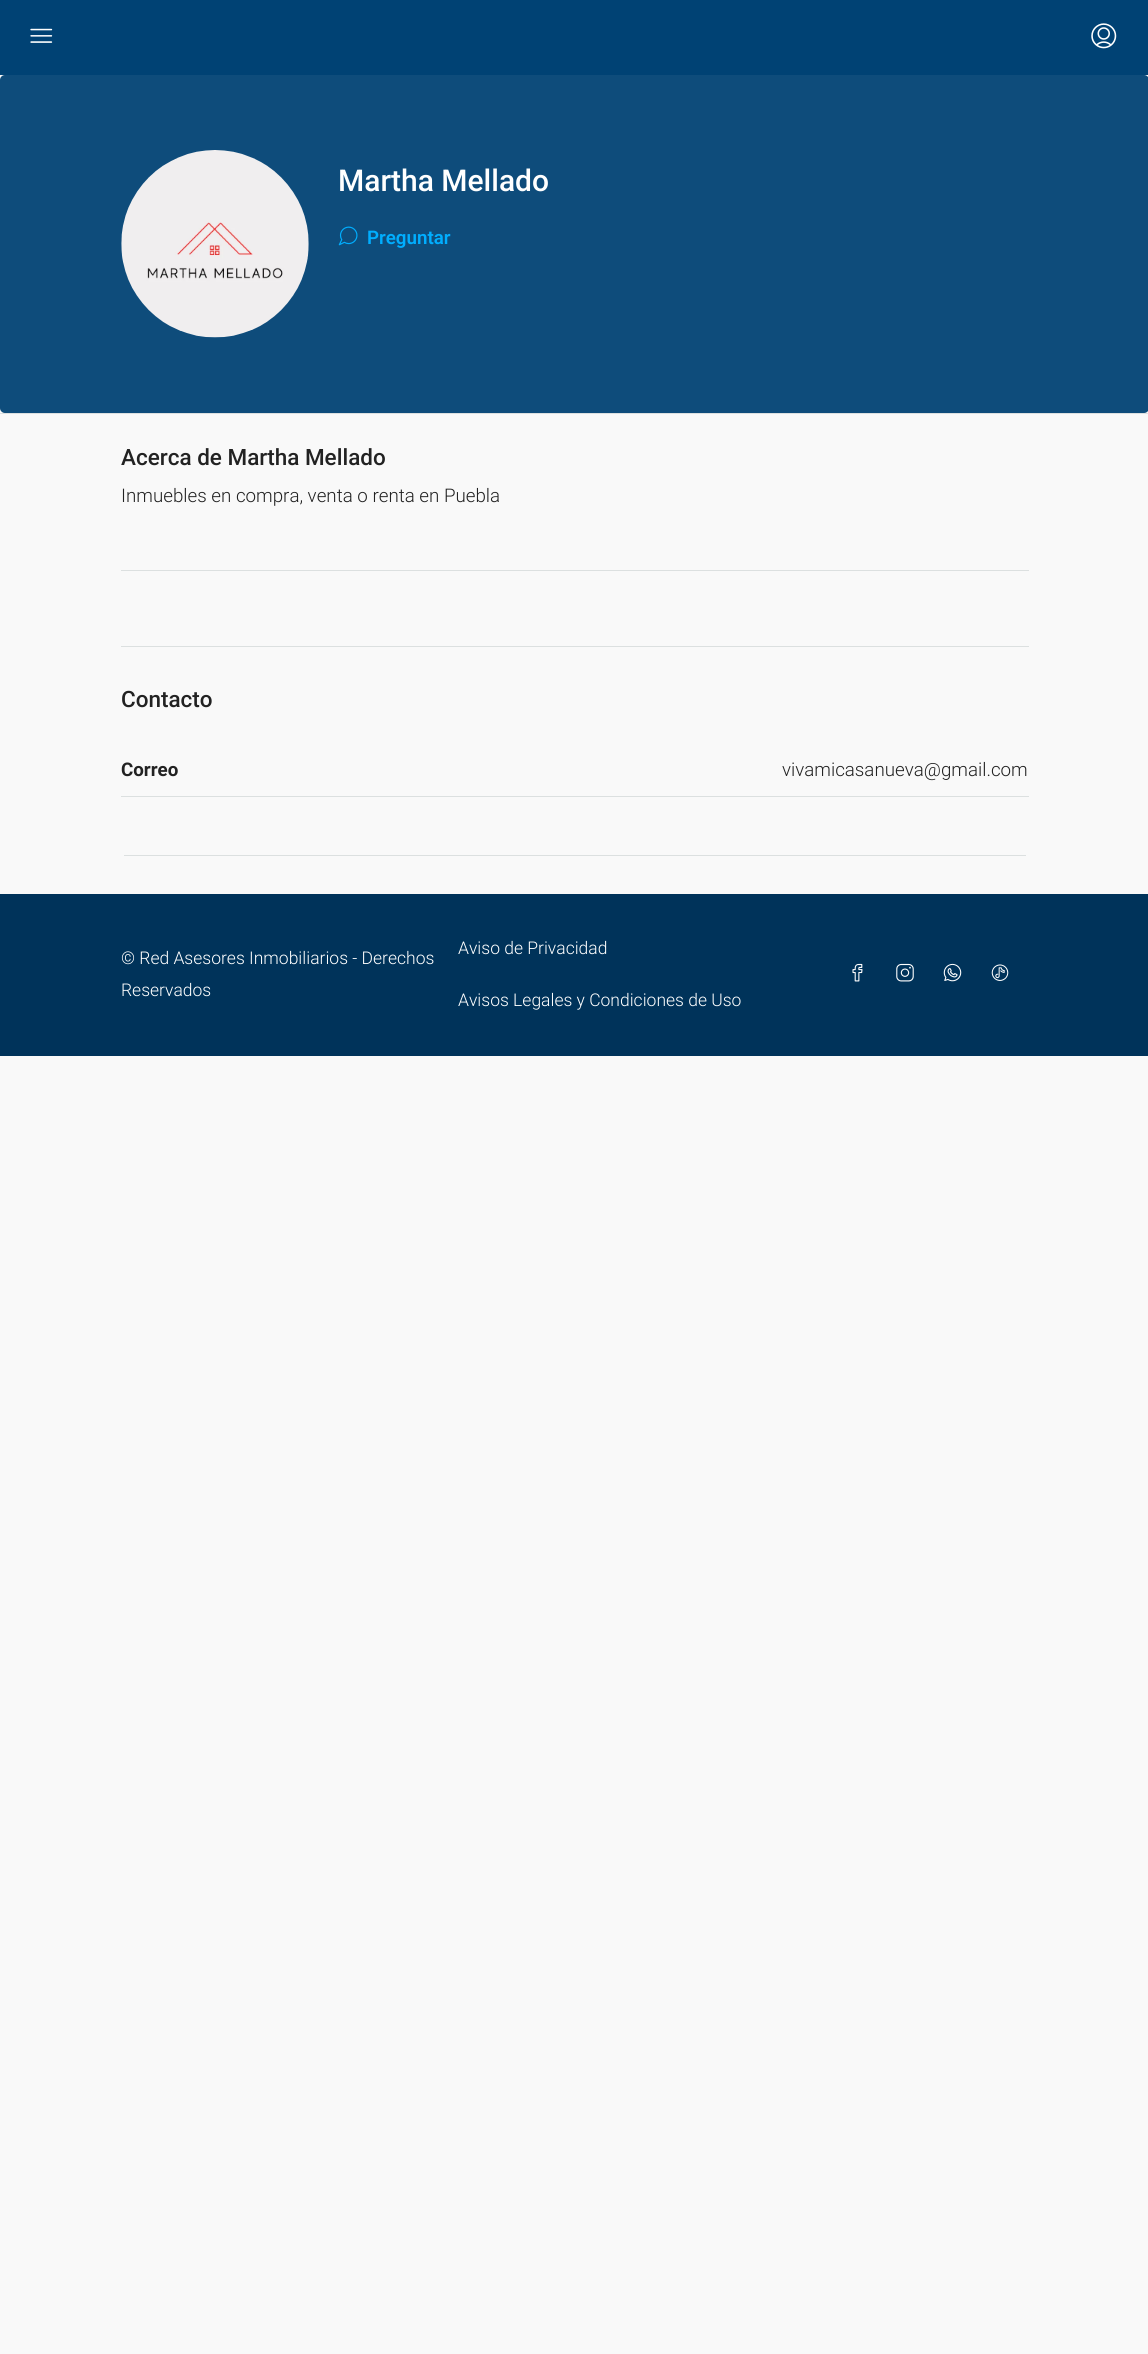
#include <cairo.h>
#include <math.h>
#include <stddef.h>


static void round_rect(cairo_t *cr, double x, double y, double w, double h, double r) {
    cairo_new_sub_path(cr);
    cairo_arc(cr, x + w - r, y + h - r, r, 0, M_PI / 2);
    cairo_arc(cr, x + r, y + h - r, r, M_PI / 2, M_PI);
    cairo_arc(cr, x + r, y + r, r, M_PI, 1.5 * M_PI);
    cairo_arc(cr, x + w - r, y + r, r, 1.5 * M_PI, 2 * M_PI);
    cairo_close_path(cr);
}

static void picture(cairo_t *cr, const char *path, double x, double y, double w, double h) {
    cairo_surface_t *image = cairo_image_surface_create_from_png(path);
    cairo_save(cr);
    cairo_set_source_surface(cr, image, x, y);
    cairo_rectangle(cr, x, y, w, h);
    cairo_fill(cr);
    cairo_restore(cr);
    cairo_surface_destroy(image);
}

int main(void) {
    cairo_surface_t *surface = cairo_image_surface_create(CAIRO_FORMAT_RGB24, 1148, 2354);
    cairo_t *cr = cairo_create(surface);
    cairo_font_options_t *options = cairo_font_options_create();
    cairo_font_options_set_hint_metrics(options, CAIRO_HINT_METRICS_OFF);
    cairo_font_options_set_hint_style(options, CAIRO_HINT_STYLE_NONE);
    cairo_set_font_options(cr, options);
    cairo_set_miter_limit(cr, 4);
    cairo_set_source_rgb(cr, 0.973, 0.973, 0.973);
    cairo_paint(cr);
    cairo_set_source_rgb(cr, 0, 0.259, 0.455);
    cairo_rectangle(cr, 0, 0, 1148, 75);
    cairo_fill(cr);
    picture(cr, "img1.png", 30, 28, 23, 15);
    picture(cr, "img2.png", 1091, 23, 26, 26);
    cairo_set_source_rgb(cr, 0.055, 0.298, 0.482);
    round_rect(cr, 0, 75, 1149, 338, 5);
    cairo_fill(cr);
    picture(cr, "img3.png", 121, 150, 188, 188);
    cairo_select_font_face(cr, "Roboto Medium", CAIRO_FONT_SLANT_NORMAL, CAIRO_FONT_WEIGHT_NORMAL);
    cairo_set_font_size(cr, 30);
    cairo_set_source_rgb(cr, 1, 1, 1);
    cairo_move_to(cr, 338, 191);
    cairo_show_text(cr, "Martha Mellado");
    picture(cr, "img4.png", 338, 226, 20, 20);
    cairo_select_font_face(cr, "Roboto SemiBold", CAIRO_FONT_SLANT_NORMAL, CAIRO_FONT_WEIGHT_NORMAL);
    cairo_set_font_size(cr, 18.75);
    cairo_set_source_rgb(cr, 0, 0.682, 1);
    cairo_move_to(cr, 367, 244);
    cairo_show_text(cr, "Preguntar");
    cairo_set_source_rgb(cr, 0.863, 0.878, 0.878);
    cairo_rectangle(cr, 0, 413, 1148, 1);
    cairo_fill(cr);
    cairo_rectangle(cr, 121, 570, 908, 1);
    cairo_fill(cr);
    cairo_select_font_face(cr, "Roboto Medium", CAIRO_FONT_SLANT_NORMAL, CAIRO_FONT_WEIGHT_NORMAL);
    cairo_set_font_size(cr, 22.5);
    cairo_set_source_rgb(cr, 0.133, 0.133, 0.133);
    cairo_move_to(cr, 121, 465);
    cairo_show_text(cr, "Acerca de Martha Mellado");
    cairo_select_font_face(cr, "Roboto Light", CAIRO_FONT_SLANT_NORMAL, CAIRO_FONT_WEIGHT_NORMAL);
    cairo_set_font_size(cr, 18.75);
    cairo_move_to(cr, 121, 502);
    cairo_show_text(cr, "Inmuebles en compra, venta o renta en Puebla");
    cairo_set_source_rgb(cr, 0.863, 0.878, 0.878);
    cairo_rectangle(cr, 121, 646, 908, 1);
    cairo_fill(cr);
    cairo_rectangle(cr, 124, 855, 902, 1);
    cairo_fill(cr);
    cairo_select_font_face(cr, "Roboto Medium", CAIRO_FONT_SLANT_NORMAL, CAIRO_FONT_WEIGHT_NORMAL);
    cairo_set_font_size(cr, 22.5);
    cairo_set_source_rgb(cr, 0.133, 0.133, 0.133);
    cairo_move_to(cr, 121, 707);
    cairo_show_text(cr, "Contacto");
    cairo_set_source_rgb(cr, 0.863, 0.878, 0.878);
    cairo_rectangle(cr, 121, 796, 908, 1);
    cairo_fill(cr);
    cairo_select_font_face(cr, "Roboto", CAIRO_FONT_SLANT_NORMAL, CAIRO_FONT_WEIGHT_BOLD);
    cairo_set_font_size(cr, 18.75);
    cairo_set_source_rgb(cr, 0.133, 0.133, 0.133);
    cairo_move_to(cr, 121, 776);
    cairo_show_text(cr, "Correo");
    cairo_select_font_face(cr, "Roboto Light", CAIRO_FONT_SLANT_NORMAL, CAIRO_FONT_WEIGHT_NORMAL);
    cairo_move_to(cr, 782, 776);
    cairo_show_text(cr, "vivamicasanueva@gmail.com");
    cairo_set_source_rgb(cr, 0, 0.2, 0.353);
    cairo_rectangle(cr, 0, 894, 1148, 162);
    cairo_fill(cr);
    cairo_set_font_size(cr, 17.5);
    cairo_set_source_rgb(cr, 1, 1, 1);
    cairo_move_to(cr, 121, 964);
    cairo_show_text(cr, "© Red Asesores Inmobiliarios - Derechos");
    cairo_move_to(cr, 121, 996);
    cairo_show_text(cr, "Reservados");
    cairo_move_to(cr, 458, 954);
    cairo_show_text(cr, "Aviso de Privacidad");
    cairo_move_to(cr, 458, 1006);
    cairo_show_text(cr, "Avisos Legales y Condiciones de Uso");
    picture(cr, "img5.png", 852, 963, 11, 19);
    picture(cr, "img6.png", 896, 963, 18, 19);
    picture(cr, "img7.png", 943, 963, 19, 19);
    picture(cr, "img8.png", 991, 964, 18, 17);
    cairo_surface_write_to_png(surface, "page.png");
    cairo_font_options_destroy(options);
    cairo_destroy(cr);
    cairo_surface_destroy(surface);
    return 0;
}
